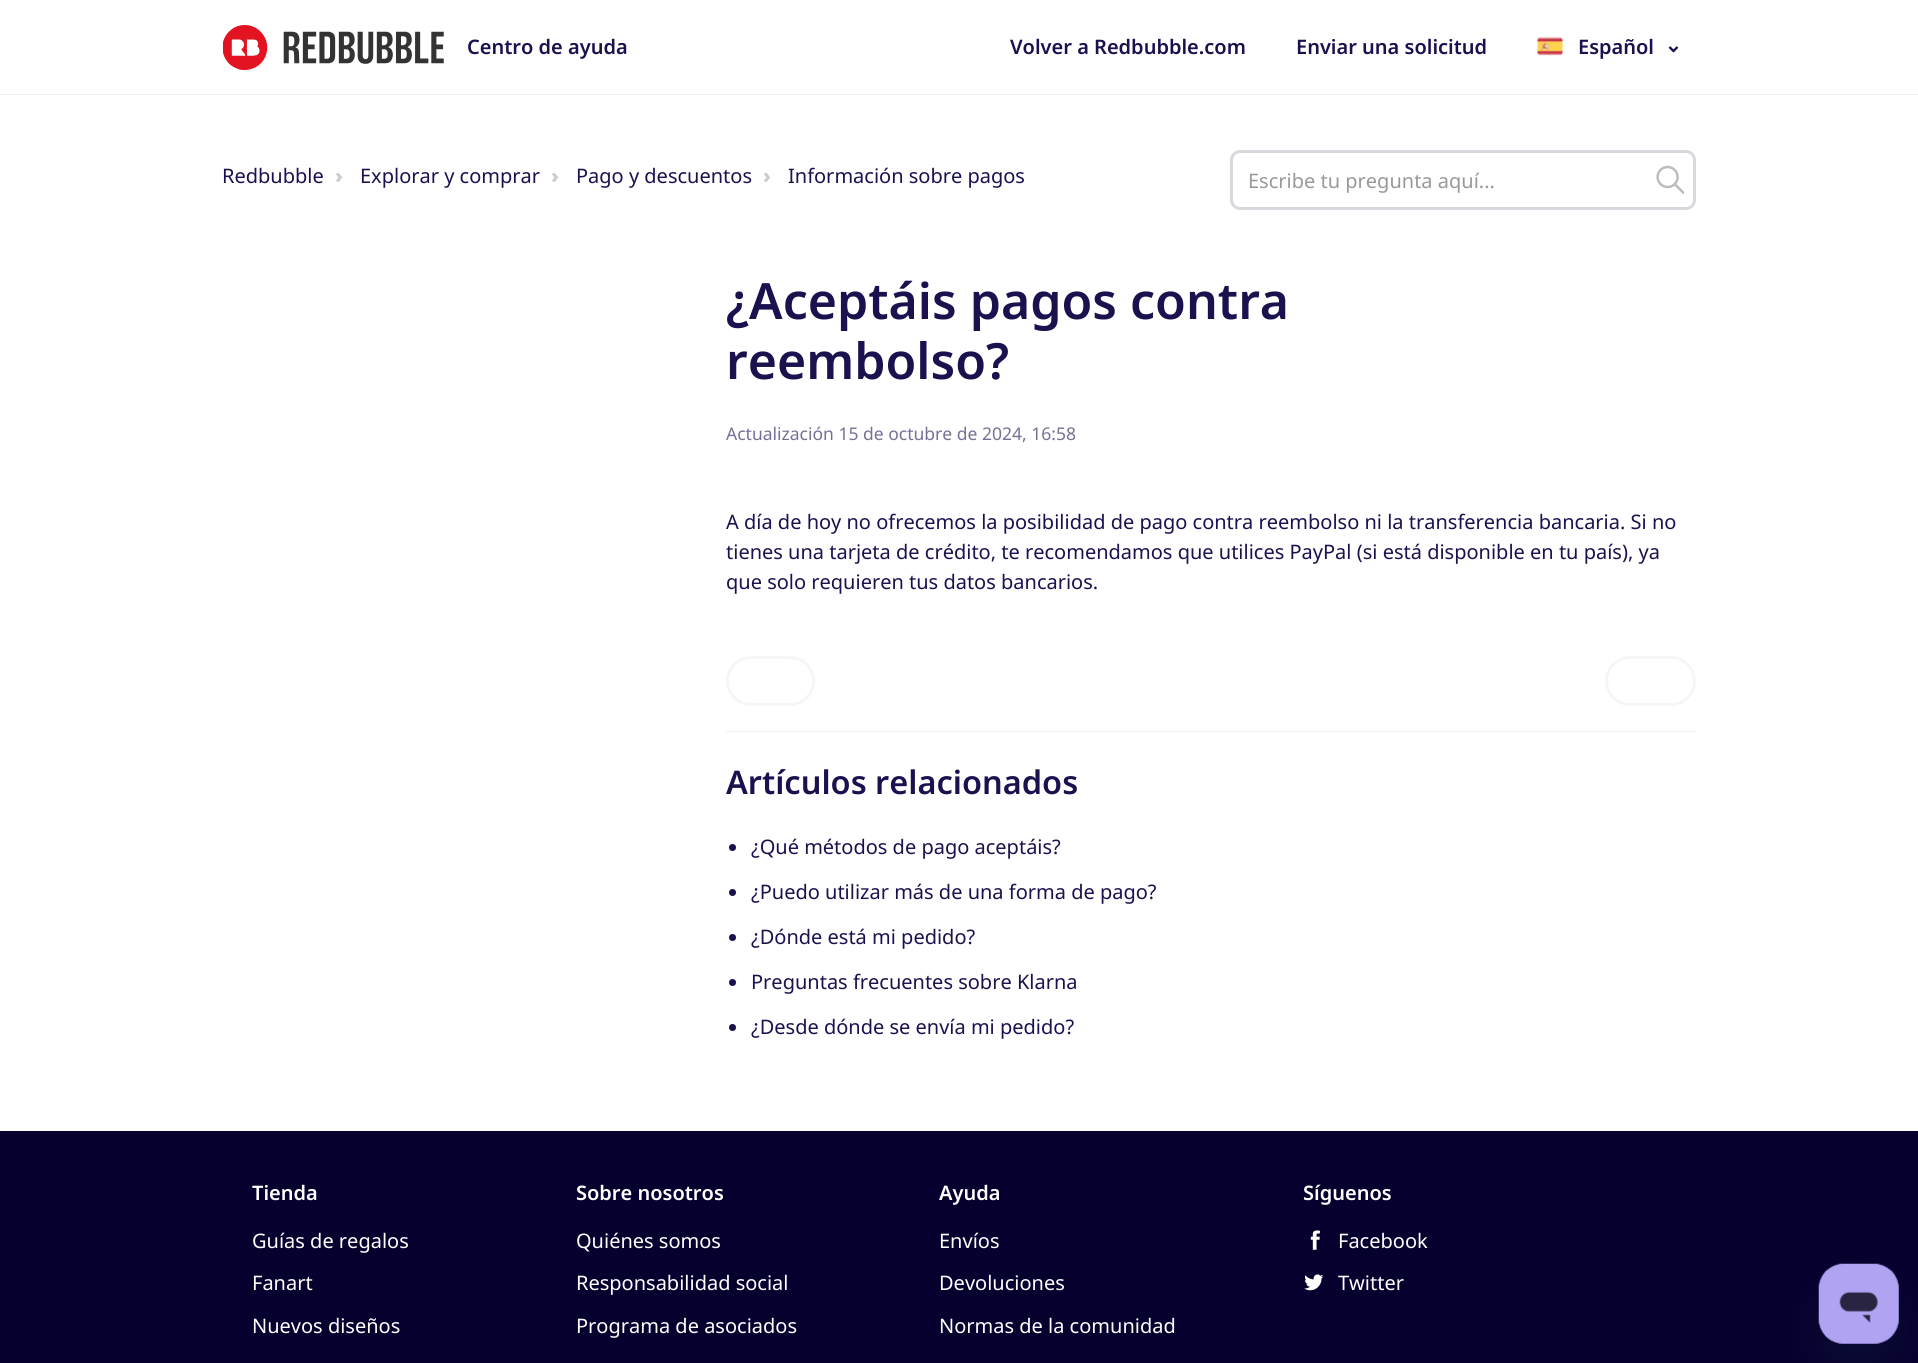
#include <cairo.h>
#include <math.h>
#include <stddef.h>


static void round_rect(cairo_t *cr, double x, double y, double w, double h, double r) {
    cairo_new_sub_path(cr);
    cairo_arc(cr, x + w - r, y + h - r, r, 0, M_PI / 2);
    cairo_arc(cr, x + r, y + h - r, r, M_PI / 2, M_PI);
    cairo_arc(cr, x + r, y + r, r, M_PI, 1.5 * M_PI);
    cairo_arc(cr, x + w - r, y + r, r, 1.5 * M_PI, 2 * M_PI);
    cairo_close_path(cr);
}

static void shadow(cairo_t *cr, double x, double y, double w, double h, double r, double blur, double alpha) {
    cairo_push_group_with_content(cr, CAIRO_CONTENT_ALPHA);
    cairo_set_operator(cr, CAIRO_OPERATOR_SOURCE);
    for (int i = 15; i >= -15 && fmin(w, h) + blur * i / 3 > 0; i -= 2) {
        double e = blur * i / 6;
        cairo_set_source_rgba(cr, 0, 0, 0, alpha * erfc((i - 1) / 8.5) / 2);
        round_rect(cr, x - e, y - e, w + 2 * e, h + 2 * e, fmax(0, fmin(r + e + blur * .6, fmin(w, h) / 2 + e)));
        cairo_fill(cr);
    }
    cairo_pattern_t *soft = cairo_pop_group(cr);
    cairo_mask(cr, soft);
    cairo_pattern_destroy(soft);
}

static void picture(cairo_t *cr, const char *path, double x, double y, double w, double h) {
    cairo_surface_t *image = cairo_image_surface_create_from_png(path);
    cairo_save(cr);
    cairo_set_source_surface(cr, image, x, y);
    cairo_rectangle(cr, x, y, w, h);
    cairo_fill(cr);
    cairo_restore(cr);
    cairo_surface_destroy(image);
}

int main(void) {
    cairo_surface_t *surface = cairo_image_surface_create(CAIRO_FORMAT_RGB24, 1918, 1363);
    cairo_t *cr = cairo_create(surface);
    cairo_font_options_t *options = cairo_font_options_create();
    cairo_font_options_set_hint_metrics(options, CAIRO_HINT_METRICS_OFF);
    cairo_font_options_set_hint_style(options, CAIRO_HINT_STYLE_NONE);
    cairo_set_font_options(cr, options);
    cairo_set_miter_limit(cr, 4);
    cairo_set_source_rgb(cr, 1, 1, 1);
    cairo_paint(cr);
    cairo_set_source_rgb(cr, 0.933, 0.933, 0.933);
    cairo_rectangle(cr, 0, 94, 1918, 1);
    cairo_fill(cr);
    picture(cr, "img1.png", 223, 25, 221, 45);
    cairo_select_font_face(cr, "Noto Sans SemiBold", CAIRO_FONT_SLANT_NORMAL, CAIRO_FONT_WEIGHT_NORMAL);
    cairo_set_font_size(cr, 20);
    cairo_set_source_rgb(cr, 0.098, 0.071, 0.31);
    cairo_move_to(cr, 467, 54);
    cairo_show_text(cr, "Centro de ayuda");
    cairo_move_to(cr, 1010, 54);
    cairo_show_text(cr, "Volver a Redbubble.com");
    cairo_move_to(cr, 1296, 54);
    cairo_show_text(cr, "Enviar una solicitud");
    picture(cr, "img2.png", 1537, 37, 26, 19);
    cairo_move_to(cr, 1578, 54);
    cairo_show_text(cr, "Español");
    picture(cr, "img3.png", 1668, 46, 11, 7);
    cairo_select_font_face(cr, "Noto Sans", CAIRO_FONT_SLANT_NORMAL, CAIRO_FONT_WEIGHT_NORMAL);
    cairo_move_to(cr, 222, 183);
    cairo_show_text(cr, "Redbubble");
    cairo_select_font_face(cr, "Noto Sans Black", CAIRO_FONT_SLANT_NORMAL, CAIRO_FONT_WEIGHT_NORMAL);
    cairo_set_source_rgb(cr, 0.8, 0.8, 0.8);
    cairo_move_to(cr, 335, 183);
    cairo_show_text(cr, "›");
    cairo_select_font_face(cr, "Noto Sans", CAIRO_FONT_SLANT_NORMAL, CAIRO_FONT_WEIGHT_NORMAL);
    cairo_set_source_rgb(cr, 0.098, 0.071, 0.31);
    cairo_move_to(cr, 360, 183);
    cairo_show_text(cr, "Explorar y comprar");
    cairo_select_font_face(cr, "Noto Sans Black", CAIRO_FONT_SLANT_NORMAL, CAIRO_FONT_WEIGHT_NORMAL);
    cairo_set_source_rgb(cr, 0.8, 0.8, 0.8);
    cairo_move_to(cr, 551, 183);
    cairo_show_text(cr, "›");
    cairo_select_font_face(cr, "Noto Sans", CAIRO_FONT_SLANT_NORMAL, CAIRO_FONT_WEIGHT_NORMAL);
    cairo_set_source_rgb(cr, 0.098, 0.071, 0.31);
    cairo_move_to(cr, 576, 183);
    cairo_show_text(cr, "Pago y descuentos");
    cairo_select_font_face(cr, "Noto Sans Black", CAIRO_FONT_SLANT_NORMAL, CAIRO_FONT_WEIGHT_NORMAL);
    cairo_set_source_rgb(cr, 0.8, 0.8, 0.8);
    cairo_move_to(cr, 763, 183);
    cairo_show_text(cr, "›");
    cairo_select_font_face(cr, "Noto Sans", CAIRO_FONT_SLANT_NORMAL, CAIRO_FONT_WEIGHT_NORMAL);
    cairo_set_source_rgb(cr, 0.098, 0.071, 0.31);
    cairo_move_to(cr, 788, 183);
    cairo_show_text(cr, "Información sobre pagos");
    round_rect(cr, 1231.5, 151.5, 463, 57, 8.5);
    cairo_set_source_rgb(cr, 0.839, 0.855, 0.875);
    cairo_set_line_width(cr, 3);
    cairo_stroke(cr);
    cairo_set_source_rgb(cr, 0.6, 0.6, 0.6);
    cairo_move_to(cr, 1248, 188);
    cairo_show_text(cr, "Escribe tu pregunta aquí...");
    picture(cr, "img4.png", 1656, 165, 28, 30);
    cairo_select_font_face(cr, "Noto Sans SemiBold", CAIRO_FONT_SLANT_NORMAL, CAIRO_FONT_WEIGHT_NORMAL);
    cairo_set_font_size(cr, 50);
    cairo_set_source_rgb(cr, 0.098, 0.071, 0.31);
    cairo_move_to(cr, 726, 319);
    cairo_show_text(cr, "¿Aceptáis pagos contra");
    cairo_move_to(cr, 726, 379);
    cairo_show_text(cr, "reembolso?");
    cairo_select_font_face(cr, "Noto Sans", CAIRO_FONT_SLANT_NORMAL, CAIRO_FONT_WEIGHT_NORMAL);
    cairo_set_font_size(cr, 17.5);
    cairo_set_source_rgb(cr, 0.459, 0.443, 0.584);
    cairo_move_to(cr, 726, 440);
    cairo_show_text(cr, "Actualización 15 de octubre de 2024, 16:58");
    cairo_set_font_size(cr, 20);
    cairo_set_source_rgb(cr, 0.098, 0.071, 0.31);
    cairo_move_to(cr, 726, 529);
    cairo_show_text(cr, "A día de hoy no ofrecemos la posibilidad de pago contra reembolso ni la transferencia bancaria. Si no");
    cairo_move_to(cr, 726, 559);
    cairo_show_text(cr, "tienes una tarjeta de crédito, te recomendamos que utilices PayPal (si está disponible en tu país), ya");
    cairo_move_to(cr, 726, 589);
    cairo_show_text(cr, "que solo requieren tus datos bancarios.");
    cairo_set_source_rgb(cr, 0.925, 0.933, 0.937);
    cairo_rectangle(cr, 726, 731, 970, 1);
    cairo_fill(cr);
    round_rect(cr, 727.5, 657.5, 86, 47, 23.5);
    cairo_set_source_rgb(cr, 0.961, 0.961, 0.961);
    cairo_stroke(cr);
    round_rect(cr, 1606.5, 657.5, 88, 47, 23.5);
    cairo_stroke(cr);
    cairo_select_font_face(cr, "Noto Sans SemiBold", CAIRO_FONT_SLANT_NORMAL, CAIRO_FONT_WEIGHT_NORMAL);
    cairo_set_font_size(cr, 32.5);
    cairo_set_source_rgb(cr, 0.098, 0.071, 0.31);
    cairo_move_to(cr, 726, 794);
    cairo_show_text(cr, "Artículos relacionados");
    cairo_new_path(cr);
    cairo_arc(cr, 732.5, 847.5, 3.5, 0, 2 * M_PI);
    cairo_fill(cr);
    cairo_select_font_face(cr, "Noto Sans", CAIRO_FONT_SLANT_NORMAL, CAIRO_FONT_WEIGHT_NORMAL);
    cairo_set_font_size(cr, 20);
    cairo_move_to(cr, 751, 854);
    cairo_show_text(cr, "¿Qué métodos de pago aceptáis?");
    cairo_new_path(cr);
    cairo_arc(cr, 732.5, 892.5, 3.5, 0, 2 * M_PI);
    cairo_fill(cr);
    cairo_move_to(cr, 751, 899);
    cairo_show_text(cr, "¿Puedo utilizar más de una forma de pago?");
    cairo_new_path(cr);
    cairo_arc(cr, 732.5, 937.5, 3.5, 0, 2 * M_PI);
    cairo_fill(cr);
    cairo_move_to(cr, 751, 944);
    cairo_show_text(cr, "¿Dónde está mi pedido?");
    cairo_new_path(cr);
    cairo_arc(cr, 732.5, 982.5, 3.5, 0, 2 * M_PI);
    cairo_fill(cr);
    cairo_move_to(cr, 751, 989);
    cairo_show_text(cr, "Preguntas frecuentes sobre Klarna");
    cairo_new_path(cr);
    cairo_arc(cr, 732.5, 1027.5, 3.5, 0, 2 * M_PI);
    cairo_fill(cr);
    cairo_move_to(cr, 751, 1034);
    cairo_show_text(cr, "¿Desde dónde se envía mi pedido?");
    cairo_set_source_rgb(cr, 0.027, 0, 0.184);
    cairo_rectangle(cr, 0, 1131, 1918, 232);
    cairo_fill(cr);
    cairo_select_font_face(cr, "Noto Sans SemiBold", CAIRO_FONT_SLANT_NORMAL, CAIRO_FONT_WEIGHT_NORMAL);
    cairo_set_source_rgb(cr, 1, 1, 1);
    cairo_move_to(cr, 252, 1200);
    cairo_show_text(cr, "Tienda");
    cairo_select_font_face(cr, "Noto Sans", CAIRO_FONT_SLANT_NORMAL, CAIRO_FONT_WEIGHT_NORMAL);
    cairo_move_to(cr, 252, 1248);
    cairo_show_text(cr, "Guías de regalos");
    cairo_move_to(cr, 252, 1290);
    cairo_show_text(cr, "Fanart");
    cairo_move_to(cr, 252, 1333);
    cairo_show_text(cr, "Nuevos diseños");
    cairo_select_font_face(cr, "Noto Sans SemiBold", CAIRO_FONT_SLANT_NORMAL, CAIRO_FONT_WEIGHT_NORMAL);
    cairo_move_to(cr, 576, 1200);
    cairo_show_text(cr, "Sobre nosotros");
    cairo_select_font_face(cr, "Noto Sans", CAIRO_FONT_SLANT_NORMAL, CAIRO_FONT_WEIGHT_NORMAL);
    cairo_move_to(cr, 576, 1248);
    cairo_show_text(cr, "Quiénes somos");
    cairo_move_to(cr, 576, 1290);
    cairo_show_text(cr, "Responsabilidad social");
    cairo_move_to(cr, 576, 1333);
    cairo_show_text(cr, "Programa de asociados");
    cairo_select_font_face(cr, "Noto Sans SemiBold", CAIRO_FONT_SLANT_NORMAL, CAIRO_FONT_WEIGHT_NORMAL);
    cairo_move_to(cr, 939, 1200);
    cairo_show_text(cr, "Ayuda");
    cairo_select_font_face(cr, "Noto Sans", CAIRO_FONT_SLANT_NORMAL, CAIRO_FONT_WEIGHT_NORMAL);
    cairo_move_to(cr, 939, 1248);
    cairo_show_text(cr, "Envíos");
    cairo_move_to(cr, 939, 1290);
    cairo_show_text(cr, "Devoluciones");
    cairo_move_to(cr, 939, 1333);
    cairo_show_text(cr, "Normas de la comunidad");
    cairo_select_font_face(cr, "Noto Sans SemiBold", CAIRO_FONT_SLANT_NORMAL, CAIRO_FONT_WEIGHT_NORMAL);
    cairo_move_to(cr, 1303, 1200);
    cairo_show_text(cr, "Síguenos");
    picture(cr, "img5.png", 1310, 1230, 10, 20);
    cairo_select_font_face(cr, "Noto Sans", CAIRO_FONT_SLANT_NORMAL, CAIRO_FONT_WEIGHT_NORMAL);
    cairo_move_to(cr, 1338, 1248);
    cairo_show_text(cr, "Facebook");
    picture(cr, "img6.png", 1304, 1274, 20, 17);
    cairo_move_to(cr, 1338, 1290);
    cairo_show_text(cr, "Twitter");
    cairo_set_source_rgb(cr, 0.09, 0.286, 0.302);
    shadow(cr, 1819, 1289, 80, 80, 25, 19, 0.15);
    picture(cr, "img7.png", 1818, 1263, 81, 81);
    cairo_surface_write_to_png(surface, "page.png");
    cairo_font_options_destroy(options);
    cairo_destroy(cr);
    cairo_surface_destroy(surface);
    return 0;
}
